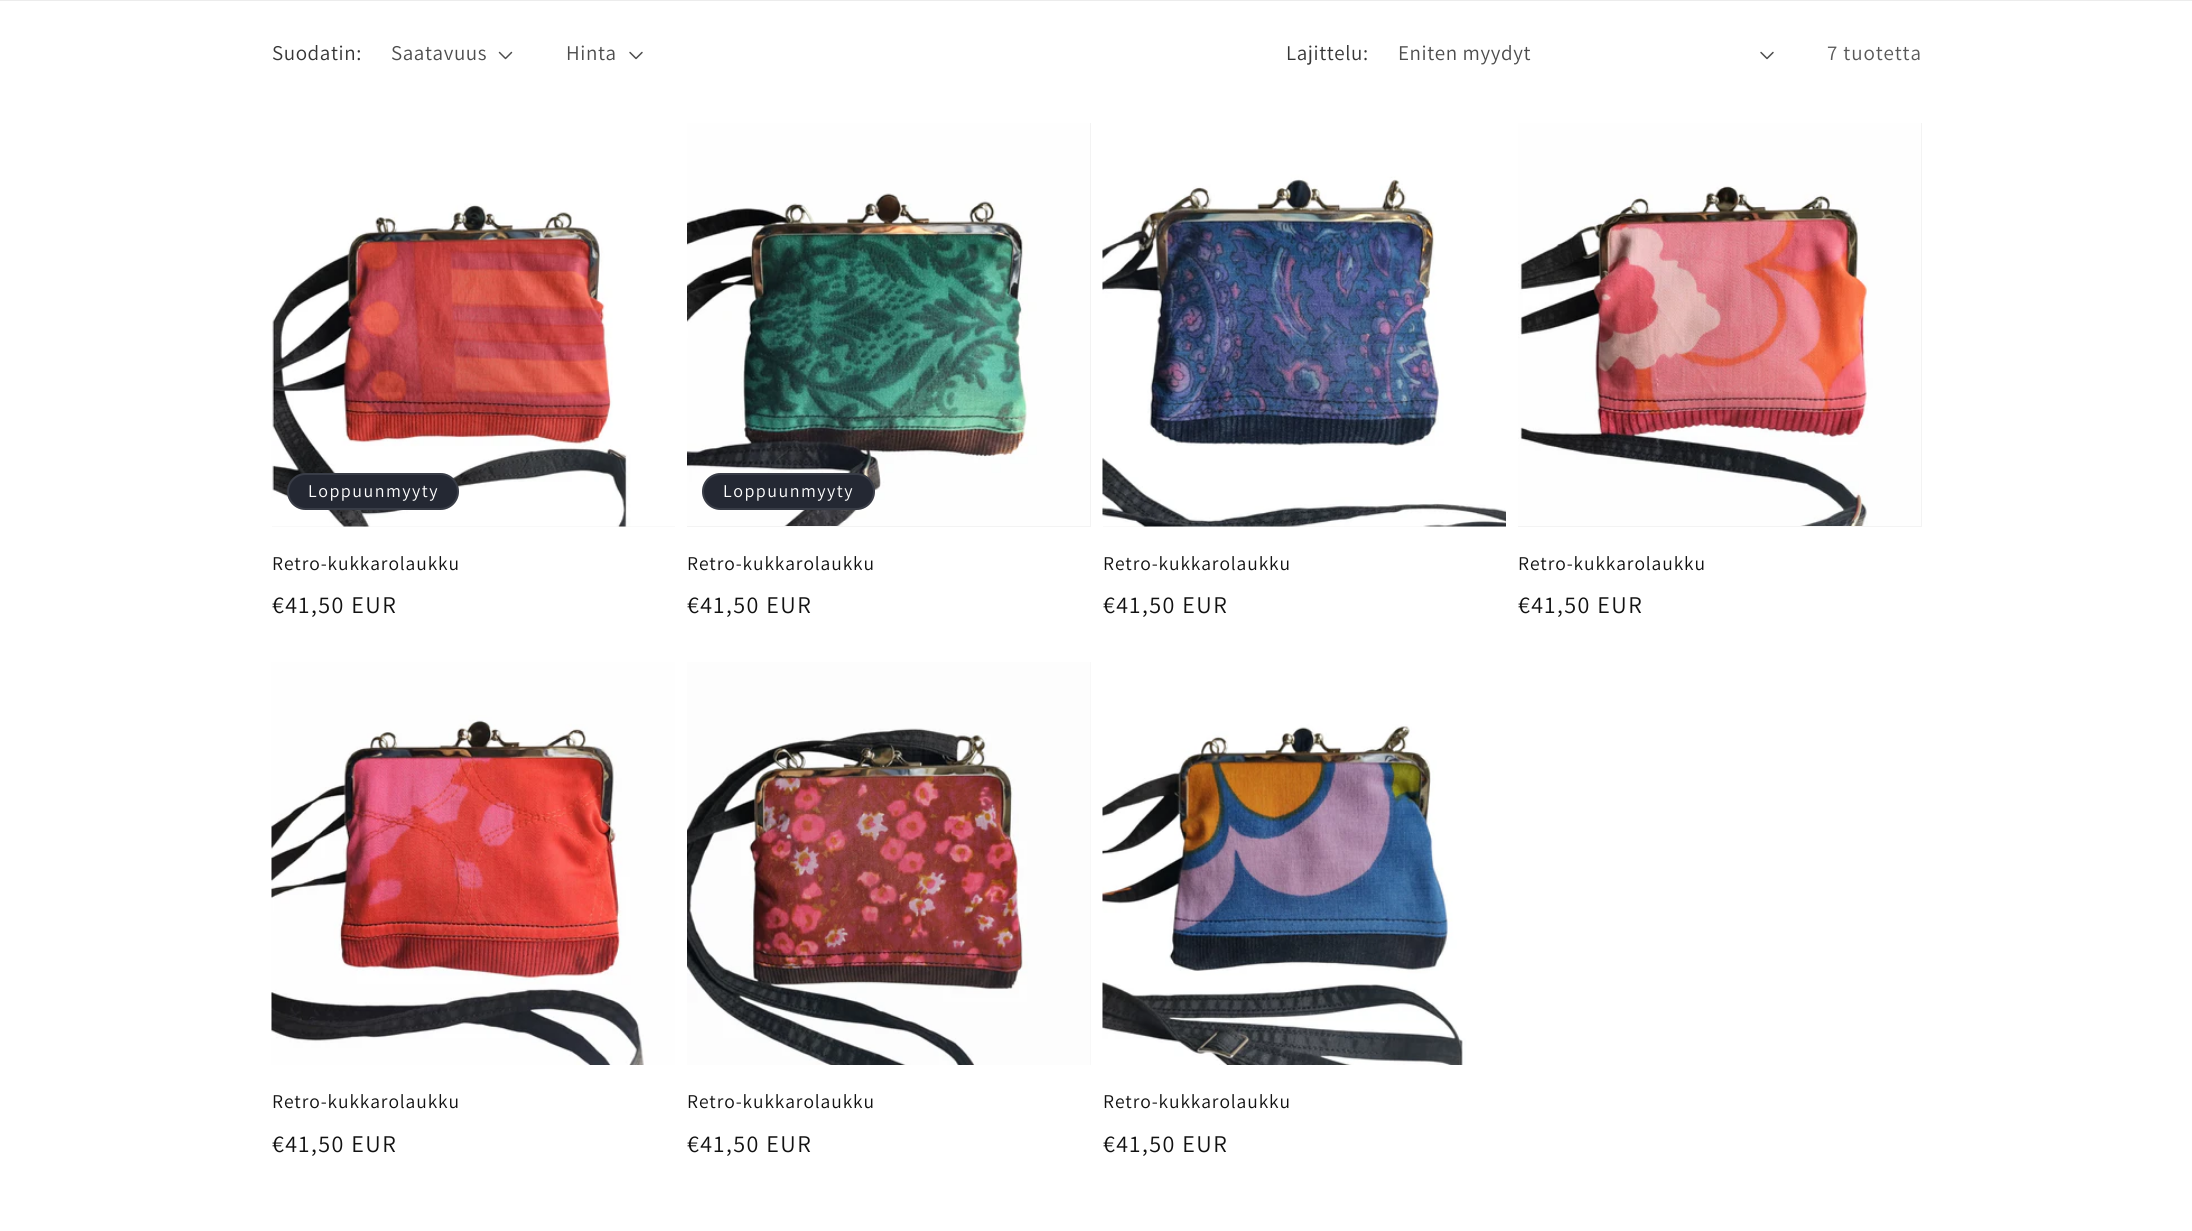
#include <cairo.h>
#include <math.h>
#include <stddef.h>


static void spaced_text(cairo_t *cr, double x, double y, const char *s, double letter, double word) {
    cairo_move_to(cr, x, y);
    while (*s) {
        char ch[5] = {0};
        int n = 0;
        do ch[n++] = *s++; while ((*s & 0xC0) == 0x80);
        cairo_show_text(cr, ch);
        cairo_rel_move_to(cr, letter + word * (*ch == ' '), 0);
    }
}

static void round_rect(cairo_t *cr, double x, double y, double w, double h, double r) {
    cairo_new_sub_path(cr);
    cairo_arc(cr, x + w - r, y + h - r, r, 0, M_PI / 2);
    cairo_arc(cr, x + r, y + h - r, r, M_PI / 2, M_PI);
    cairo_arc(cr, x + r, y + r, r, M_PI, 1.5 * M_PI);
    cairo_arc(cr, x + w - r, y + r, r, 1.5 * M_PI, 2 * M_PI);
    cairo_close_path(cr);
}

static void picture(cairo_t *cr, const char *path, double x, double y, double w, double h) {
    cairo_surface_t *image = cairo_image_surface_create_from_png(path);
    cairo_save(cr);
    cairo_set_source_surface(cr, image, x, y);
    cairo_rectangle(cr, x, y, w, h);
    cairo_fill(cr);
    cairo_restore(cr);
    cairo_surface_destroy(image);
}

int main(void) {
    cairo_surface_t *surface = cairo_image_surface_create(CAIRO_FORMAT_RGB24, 2192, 1231);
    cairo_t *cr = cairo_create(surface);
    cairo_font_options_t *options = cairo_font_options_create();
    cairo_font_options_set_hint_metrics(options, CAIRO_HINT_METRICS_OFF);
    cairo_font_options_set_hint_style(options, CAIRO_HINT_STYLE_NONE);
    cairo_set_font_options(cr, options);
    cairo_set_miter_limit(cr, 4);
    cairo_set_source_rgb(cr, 1, 1, 1);
    cairo_paint(cr);
    cairo_set_source_rgb(cr, 0.925, 0.925, 0.925);
    cairo_rectangle(cr, 0, 0, 2192, 1);
    cairo_fill(cr);
    cairo_select_font_face(cr, "Assistant", CAIRO_FONT_SLANT_NORMAL, CAIRO_FONT_WEIGHT_NORMAL);
    cairo_set_font_size(cr, 21);
    cairo_set_source_rgb(cr, 0.212, 0.212, 0.212);
    spaced_text(cr, 272, 60, "Suodatin:", 0.6, 0);
    cairo_set_source_rgb(cr, 0.302, 0.302, 0.302);
    spaced_text(cr, 391, 60, "Saatavuus", 0.6, 0);
    picture(cr, "img1.png", 498, 51, 15, 9);
    spaced_text(cr, 566, 60, "Hinta", 0.6, 0);
    picture(cr, "img2.png", 629, 51, 14, 9);
    cairo_set_source_rgb(cr, 0.212, 0.212, 0.212);
    spaced_text(cr, 1286, 60, "Lajittelu:", 0.6, 0);
    cairo_set_source_rgb(cr, 0.302, 0.302, 0.302);
    spaced_text(cr, 1398, 60, "Eniten myydyt", 0.6, 0);
    picture(cr, "img2.png", 1760, 51, 14, 9);
    cairo_set_source_rgb(cr, 0.349, 0.349, 0.349);
    spaced_text(cr, 1827, 60, "7 tuotetta", 0.9, 0);
    cairo_set_source_rgb(cr, 0.953, 0.953, 0.953);
    cairo_rectangle(cr, 272, 526, 403, 1);
    cairo_fill(cr);
    picture(cr, "img3.png", 271, 123, 404, 404);
    cairo_set_source_rgb(cr, 0.141, 0.157, 0.2);
    round_rect(cr, 287, 473, 172, 37, 18.5);
    cairo_fill(cr);
    round_rect(cr, 288, 474, 170, 35, 17.5);
    cairo_set_source_rgba(cr, 1, 1, 1, 0.1);
    cairo_stroke(cr);
    cairo_set_font_size(cr, 18);
    cairo_set_source_rgb(cr, 1, 1, 1);
    spaced_text(cr, 308, 497, "Loppuunmyyty", 1.5, 0);
    cairo_set_font_size(cr, 19.5);
    cairo_set_source_rgb(cr, 0.071, 0.071, 0.071);
    spaced_text(cr, 272, 570, "Retro-kukkarolaukku", 0.9, 0);
    cairo_set_font_size(cr, 24);
    spaced_text(cr, 272, 613, "€41,50 EUR", 1.5, 0);
    cairo_set_source_rgb(cr, 0.953, 0.953, 0.953);
    cairo_rectangle(cr, 687, 123, 404, 404);
    cairo_fill(cr);
    picture(cr, "img4.png", 687, 123, 403, 403);
    cairo_set_source_rgb(cr, 0.141, 0.157, 0.2);
    round_rect(cr, 702, 473, 173, 37, 18.5);
    cairo_fill(cr);
    round_rect(cr, 703, 474, 171, 35, 17.5);
    cairo_set_source_rgba(cr, 1, 1, 1, 0.1);
    cairo_stroke(cr);
    cairo_set_font_size(cr, 18);
    cairo_set_source_rgb(cr, 1, 1, 1);
    spaced_text(cr, 723, 497, "Loppuunmyyty", 1.5, 0);
    cairo_set_font_size(cr, 19.5);
    cairo_set_source_rgb(cr, 0.071, 0.071, 0.071);
    spaced_text(cr, 687, 570, "Retro-kukkarolaukku", 0.9, 0);
    cairo_set_font_size(cr, 24);
    spaced_text(cr, 687, 613, "€41,50 EUR", 1.5, 0);
    cairo_set_source_rgb(cr, 0.953, 0.953, 0.953);
    cairo_rectangle(cr, 1103, 526, 403, 1);
    cairo_fill(cr);
    picture(cr, "img5.png", 1102, 123, 404, 404);
    cairo_set_font_size(cr, 19.5);
    cairo_set_source_rgb(cr, 0.071, 0.071, 0.071);
    spaced_text(cr, 1103, 570, "Retro-kukkarolaukku", 0.9, 0);
    cairo_set_font_size(cr, 24);
    spaced_text(cr, 1103, 613, "€41,50 EUR", 1.5, 0);
    cairo_set_source_rgb(cr, 0.953, 0.953, 0.953);
    cairo_rectangle(cr, 1518, 123, 404, 404);
    cairo_fill(cr);
    picture(cr, "img6.png", 1518, 123, 403, 403);
    cairo_set_font_size(cr, 19.5);
    cairo_set_source_rgb(cr, 0.071, 0.071, 0.071);
    spaced_text(cr, 1518, 570, "Retro-kukkarolaukku", 0.9, 0);
    cairo_set_font_size(cr, 24);
    spaced_text(cr, 1518, 613, "€41,50 EUR", 1.5, 0);
    picture(cr, "img7.png", 271, 662, 404, 403);
    cairo_set_font_size(cr, 19.5);
    spaced_text(cr, 272, 1108, "Retro-kukkarolaukku", 0.9, 0);
    cairo_set_font_size(cr, 24);
    spaced_text(cr, 272, 1152, "€41,50 EUR", 1.5, 0);
    cairo_set_source_rgb(cr, 0.953, 0.953, 0.953);
    cairo_rectangle(cr, 1090, 662, 1, 403);
    cairo_fill(cr);
    picture(cr, "img8.png", 687, 662, 404, 403);
    cairo_set_font_size(cr, 19.5);
    cairo_set_source_rgb(cr, 0.071, 0.071, 0.071);
    spaced_text(cr, 687, 1108, "Retro-kukkarolaukku", 0.9, 0);
    cairo_set_font_size(cr, 24);
    spaced_text(cr, 687, 1152, "€41,50 EUR", 1.5, 0);
    picture(cr, "img9.png", 1102, 662, 404, 403);
    cairo_set_font_size(cr, 19.5);
    spaced_text(cr, 1103, 1108, "Retro-kukkarolaukku", 0.9, 0);
    cairo_set_font_size(cr, 24);
    spaced_text(cr, 1103, 1152, "€41,50 EUR", 1.5, 0);
    cairo_surface_write_to_png(surface, "page.png");
    cairo_font_options_destroy(options);
    cairo_destroy(cr);
    cairo_surface_destroy(surface);
    return 0;
}
